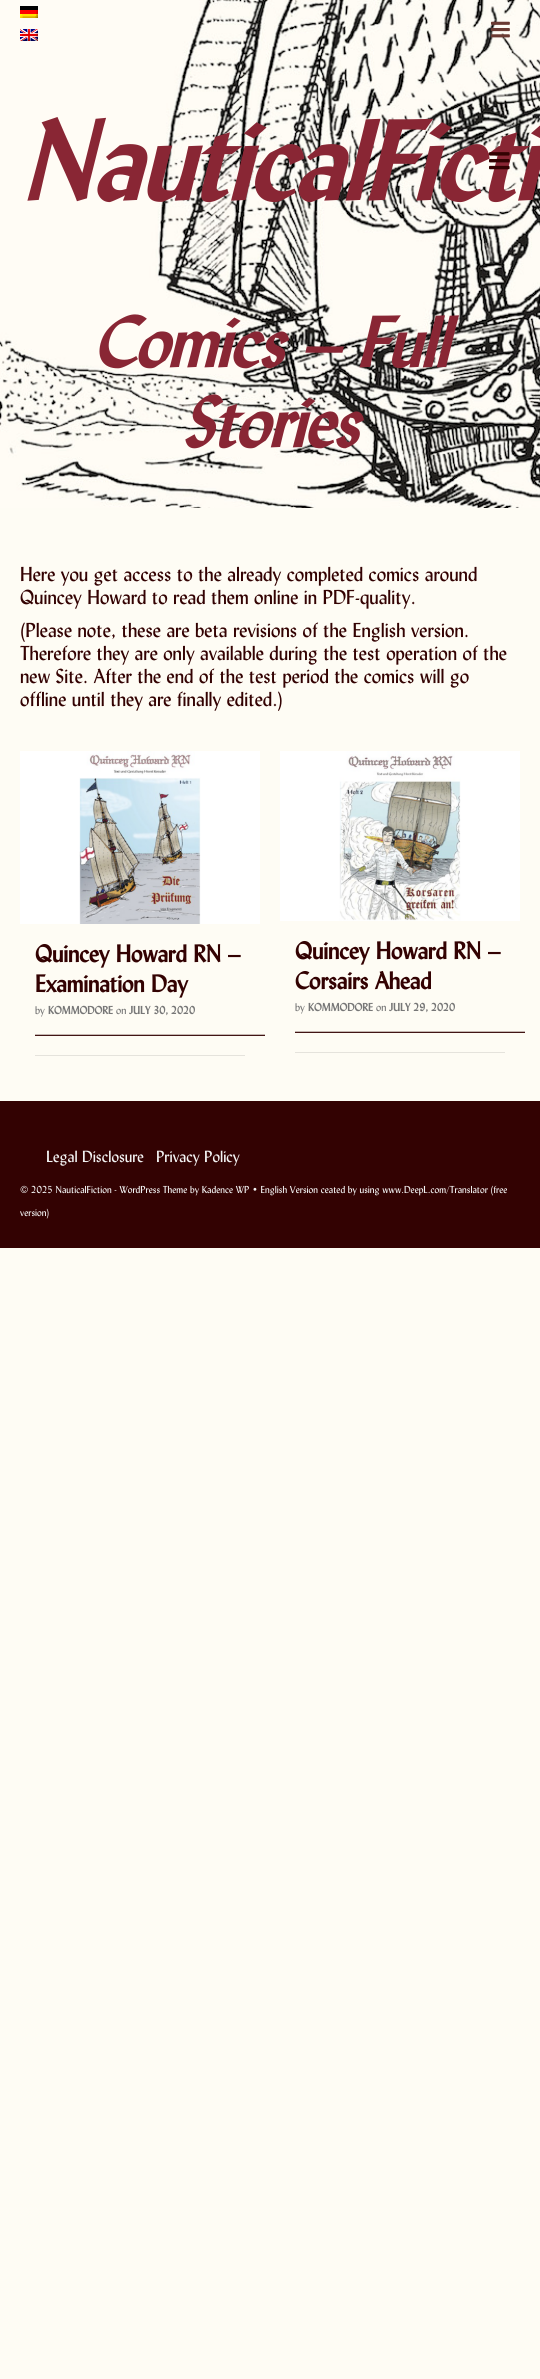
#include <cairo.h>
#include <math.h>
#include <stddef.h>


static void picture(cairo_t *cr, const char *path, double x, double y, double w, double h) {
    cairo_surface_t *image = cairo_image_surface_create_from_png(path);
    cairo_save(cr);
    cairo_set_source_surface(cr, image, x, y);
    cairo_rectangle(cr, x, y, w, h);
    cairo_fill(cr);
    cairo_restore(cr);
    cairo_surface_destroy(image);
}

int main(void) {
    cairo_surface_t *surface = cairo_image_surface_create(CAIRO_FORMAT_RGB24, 540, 2379);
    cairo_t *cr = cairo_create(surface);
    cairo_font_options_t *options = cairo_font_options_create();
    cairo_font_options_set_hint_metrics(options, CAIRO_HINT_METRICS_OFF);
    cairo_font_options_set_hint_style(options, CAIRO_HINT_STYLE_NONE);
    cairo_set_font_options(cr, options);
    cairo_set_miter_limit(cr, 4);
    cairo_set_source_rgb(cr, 0.996, 0.988, 0.957);
    cairo_paint(cr);
    picture(cr, "img5.png", 0, 0, 540, 508);
    picture(cr, "img1.png", 20, 6, 18, 12);
    picture(cr, "img2.png", 20, 29, 18, 12);
    picture(cr, "img3.png", 491, 21, 19, 17);
    cairo_select_font_face(cr, "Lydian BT", CAIRO_FONT_SLANT_ITALIC, CAIRO_FONT_WEIGHT_BOLD);
    cairo_set_font_size(cr, 110);
    cairo_set_source_rgb(cr, 0.537, 0.149, 0.204);
    cairo_move_to(cr, 20, 200);
    cairo_show_text(cr, "NauticalFicti");
    picture(cr, "img4.png", 489, 152, 21, 18);
    cairo_set_font_size(cr, 70);
    cairo_move_to(cr, 93, 367);
    cairo_show_text(cr, "Comics – Full");
    cairo_move_to(cr, 182, 447);
    cairo_show_text(cr, "Stories");
    cairo_select_font_face(cr, "Lydian BT", CAIRO_FONT_SLANT_NORMAL, CAIRO_FONT_WEIGHT_NORMAL);
    cairo_set_font_size(cr, 20);
    cairo_set_source_rgb(cr, 0.2, 0.008, 0.008);
    cairo_move_to(cr, 20, 581);
    cairo_show_text(cr, "Here you get access to the already completed comics around");
    cairo_move_to(cr, 20, 604);
    cairo_show_text(cr, "Quincey Howard to read them online in PDF-quality.");
    cairo_move_to(cr, 20, 637);
    cairo_show_text(cr, "(Please note, these are beta revisions of the English version.");
    cairo_move_to(cr, 20, 660);
    cairo_show_text(cr, "Therefore they are only available during the test operation of the");
    cairo_move_to(cr, 20, 683);
    cairo_show_text(cr, "new Site. After the end of the test period the comics will go");
    cairo_move_to(cr, 20, 706);
    cairo_show_text(cr, "offline until they are finally edited.)");
    picture(cr, "img6.png", 20, 751, 240, 173);
    cairo_select_font_face(cr, "Lydian BT", CAIRO_FONT_SLANT_NORMAL, CAIRO_FONT_WEIGHT_BOLD);
    cairo_set_font_size(cr, 24);
    cairo_move_to(cr, 35, 962);
    cairo_show_text(cr, "Quincey Howard RN –");
    cairo_move_to(cr, 35, 992);
    cairo_show_text(cr, "Examination Day");
    cairo_select_font_face(cr, "Lydian BT", CAIRO_FONT_SLANT_NORMAL, CAIRO_FONT_WEIGHT_NORMAL);
    cairo_set_font_size(cr, 11);
    cairo_set_source_rgb(cr, 0.467, 0.467, 0.467);
    cairo_move_to(cr, 35, 1014);
    cairo_show_text(cr, "by");
    cairo_select_font_face(cr, "Lydian BT", CAIRO_FONT_SLANT_NORMAL, CAIRO_FONT_WEIGHT_BOLD);
    cairo_move_to(cr, 48, 1014);
    cairo_show_text(cr, "KOMMODORE");
    cairo_select_font_face(cr, "Lydian BT", CAIRO_FONT_SLANT_NORMAL, CAIRO_FONT_WEIGHT_NORMAL);
    cairo_move_to(cr, 116, 1014);
    cairo_show_text(cr, "on");
    cairo_select_font_face(cr, "Lydian BT", CAIRO_FONT_SLANT_NORMAL, CAIRO_FONT_WEIGHT_BOLD);
    cairo_move_to(cr, 129, 1014);
    cairo_show_text(cr, "JULY 30, 2020");
    cairo_select_font_face(cr, "Lydian BT", CAIRO_FONT_SLANT_NORMAL, CAIRO_FONT_WEIGHT_NORMAL);
    cairo_set_font_size(cr, 20);
    cairo_set_source_rgb(cr, 0.2, 0.008, 0.008);
    cairo_move_to(cr, 35, 1040);
    cairo_show_text(cr, "———————————–");
    cairo_set_source_rgb(cr, 0.898, 0.89, 0.863);
    cairo_rectangle(cr, 35, 1055, 210, 1);
    cairo_fill(cr);
    picture(cr, "img7.png", 280, 751, 240, 170);
    cairo_select_font_face(cr, "Lydian BT", CAIRO_FONT_SLANT_NORMAL, CAIRO_FONT_WEIGHT_BOLD);
    cairo_set_font_size(cr, 24);
    cairo_set_source_rgb(cr, 0.2, 0.008, 0.008);
    cairo_move_to(cr, 295, 959);
    cairo_show_text(cr, "Quincey Howard RN –");
    cairo_move_to(cr, 295, 989);
    cairo_show_text(cr, "Corsairs Ahead");
    cairo_select_font_face(cr, "Lydian BT", CAIRO_FONT_SLANT_NORMAL, CAIRO_FONT_WEIGHT_NORMAL);
    cairo_set_font_size(cr, 11);
    cairo_set_source_rgb(cr, 0.467, 0.467, 0.467);
    cairo_move_to(cr, 295, 1011);
    cairo_show_text(cr, "by");
    cairo_select_font_face(cr, "Lydian BT", CAIRO_FONT_SLANT_NORMAL, CAIRO_FONT_WEIGHT_BOLD);
    cairo_move_to(cr, 308, 1011);
    cairo_show_text(cr, "KOMMODORE");
    cairo_select_font_face(cr, "Lydian BT", CAIRO_FONT_SLANT_NORMAL, CAIRO_FONT_WEIGHT_NORMAL);
    cairo_move_to(cr, 376, 1011);
    cairo_show_text(cr, "on");
    cairo_select_font_face(cr, "Lydian BT", CAIRO_FONT_SLANT_NORMAL, CAIRO_FONT_WEIGHT_BOLD);
    cairo_move_to(cr, 389, 1011);
    cairo_show_text(cr, "JULY 29, 2020");
    cairo_select_font_face(cr, "Lydian BT", CAIRO_FONT_SLANT_NORMAL, CAIRO_FONT_WEIGHT_NORMAL);
    cairo_set_font_size(cr, 20);
    cairo_set_source_rgb(cr, 0.2, 0.008, 0.008);
    cairo_move_to(cr, 295, 1037);
    cairo_show_text(cr, "———————————–");
    cairo_set_source_rgb(cr, 0.898, 0.89, 0.863);
    cairo_rectangle(cr, 295, 1052, 210, 1);
    cairo_fill(cr);
    cairo_set_source_rgb(cr, 0.2, 0.008, 0.008);
    cairo_rectangle(cr, 0, 1101, 540, 147);
    cairo_fill(cr);
    cairo_set_font_size(cr, 16);
    cairo_set_source_rgb(cr, 0.949, 0.949, 0.949);
    cairo_move_to(cr, 46, 1162);
    cairo_show_text(cr, "Legal Disclosure");
    cairo_move_to(cr, 156, 1162);
    cairo_show_text(cr, "Privacy Policy");
    cairo_set_font_size(cr, 10);
    cairo_move_to(cr, 20, 1193);
    cairo_show_text(cr, "© 2025 NauticalFiction - WordPress Theme by Kadence WP • English Version ceated by using www.DeepL.com/Translator (free");
    cairo_move_to(cr, 20, 1216);
    cairo_show_text(cr, "version)");
    cairo_surface_write_to_png(surface, "page.png");
    cairo_font_options_destroy(options);
    cairo_destroy(cr);
    cairo_surface_destroy(surface);
    return 0;
}
